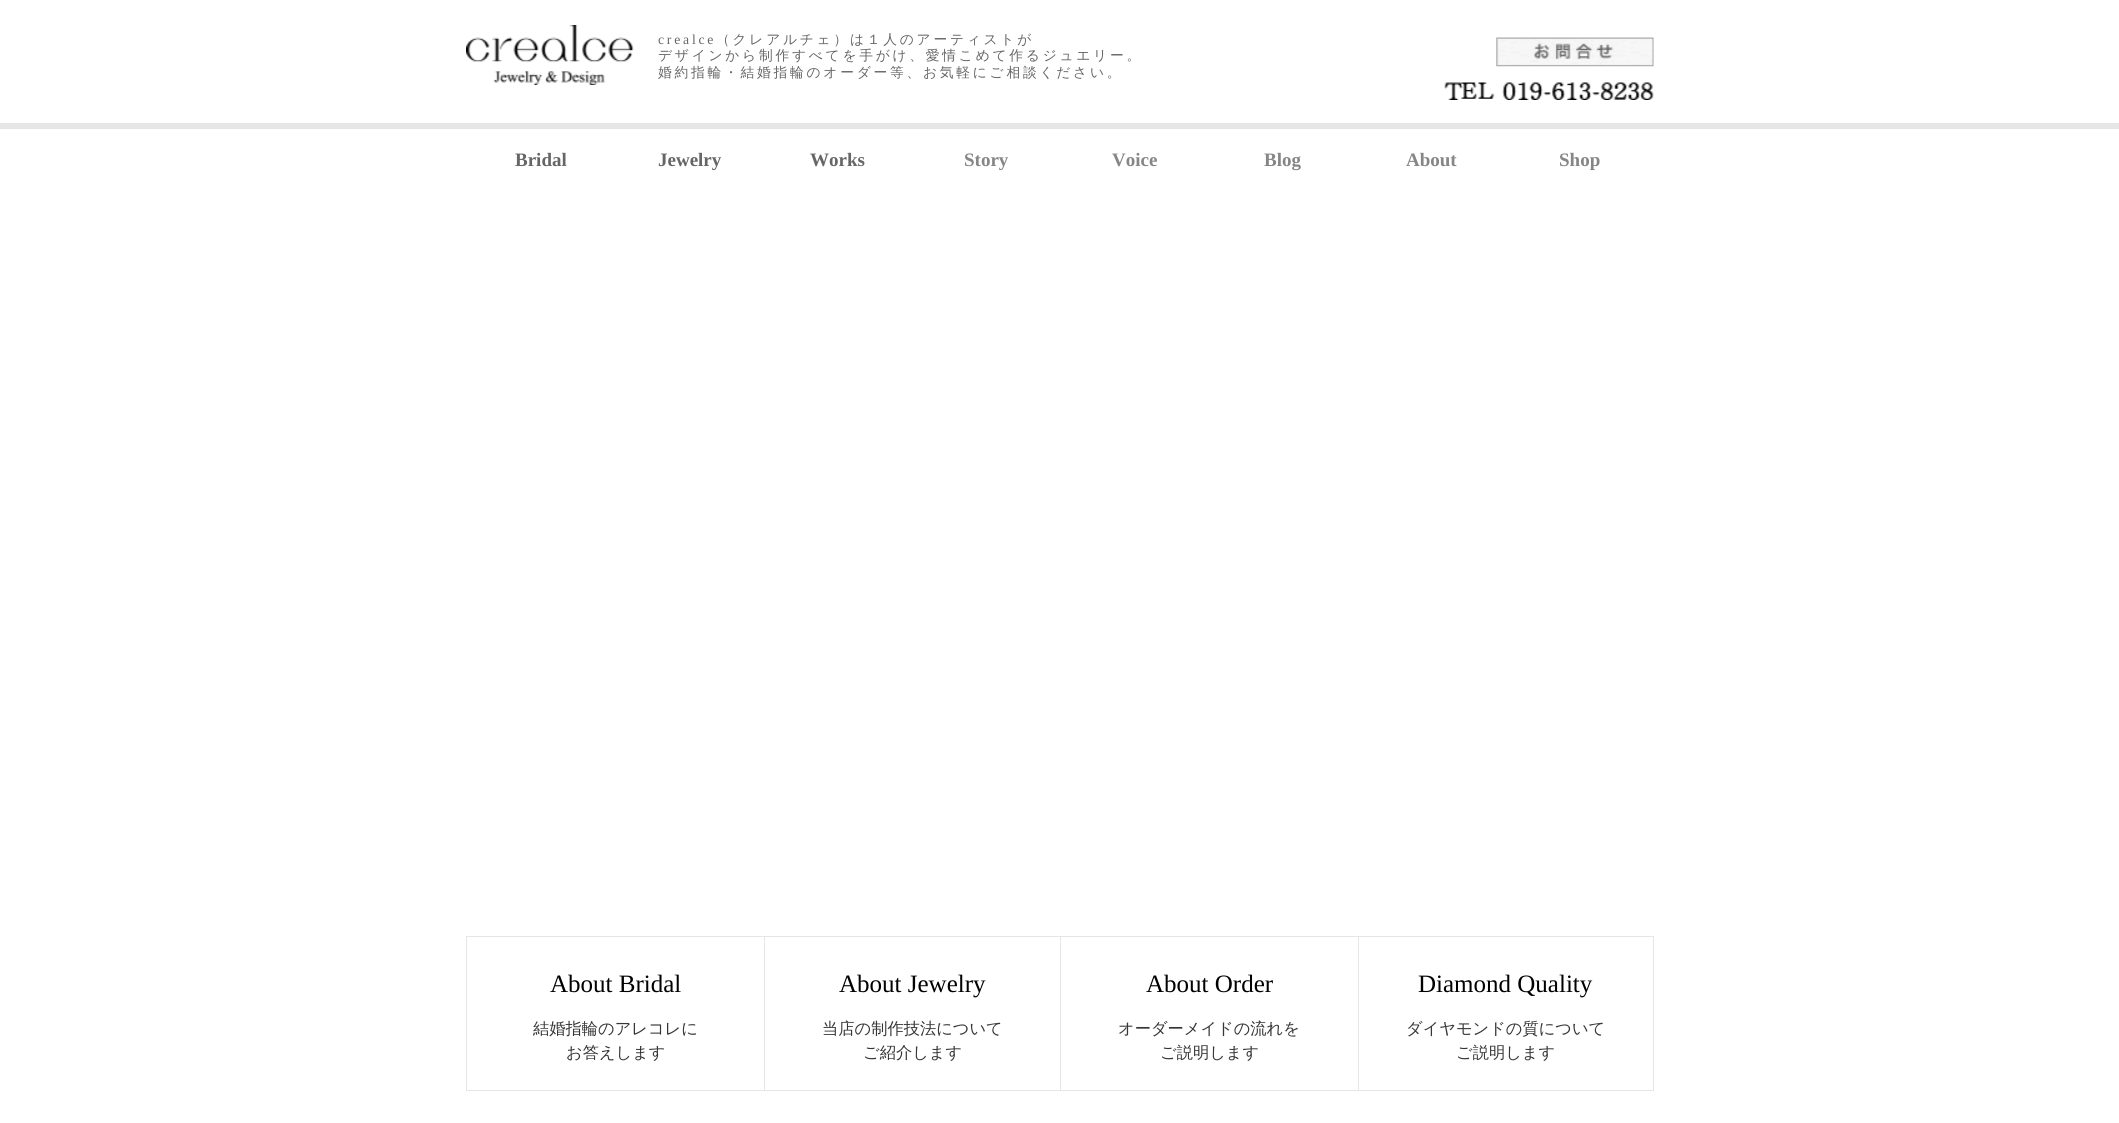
#include <cairo.h>
#include <math.h>
#include <stddef.h>


static void spaced_text(cairo_t *cr, double x, double y, const char *s, double letter, double word) {
    cairo_move_to(cr, x, y);
    while (*s) {
        char ch[5] = {0};
        int n = 0;
        do ch[n++] = *s++; while ((*s & 0xC0) == 0x80);
        cairo_show_text(cr, ch);
        cairo_rel_move_to(cr, letter + word * (*ch == ' '), 0);
    }
}

static void picture(cairo_t *cr, const char *path, double x, double y, double w, double h) {
    cairo_surface_t *image = cairo_image_surface_create_from_png(path);
    cairo_save(cr);
    cairo_set_source_surface(cr, image, x, y);
    cairo_rectangle(cr, x, y, w, h);
    cairo_fill(cr);
    cairo_restore(cr);
    cairo_surface_destroy(image);
}

int main(void) {
    cairo_surface_t *surface = cairo_image_surface_create(CAIRO_FORMAT_RGB24, 2119, 1123);
    cairo_t *cr = cairo_create(surface);
    cairo_font_options_t *options = cairo_font_options_create();
    cairo_font_options_set_hint_metrics(options, CAIRO_HINT_METRICS_OFF);
    cairo_font_options_set_hint_style(options, CAIRO_HINT_STYLE_NONE);
    cairo_set_font_options(cr, options);
    cairo_set_miter_limit(cr, 4);
    cairo_set_source_rgb(cr, 1, 1, 1);
    cairo_paint(cr);
    picture(cr, "img1.png", 466, 25, 168, 60);
    cairo_select_font_face(cr, "Liberation Serif", CAIRO_FONT_SLANT_NORMAL, CAIRO_FONT_WEIGHT_NORMAL);
    cairo_set_font_size(cr, 13.75);
    cairo_set_source_rgb(cr, 0.4, 0.4, 0.4);
    spaced_text(cr, 658, 44, "crealce", 2.75, 0);
    cairo_select_font_face(cr, "WenQuanYi Zen Hei Medium", CAIRO_FONT_SLANT_NORMAL, CAIRO_FONT_WEIGHT_NORMAL);
    spaced_text(cr, 716, 44, "（クレアルチェ）は１人のアーティストが", 2.75, 0);
    spaced_text(cr, 658, 60, "デザインから制作すべてを手がけ、愛情こめて作るジュエリー。", 2.75, 0);
    spaced_text(cr, 658, 77, "婚約指輪・結婚指輪のオーダー等、お気軽にご相談ください。", 2.75, 0);
    picture(cr, "img2.png", 1496, 37, 158, 30);
    picture(cr, "img3.png", 1444, 82, 210, 18);
    cairo_set_source_rgb(cr, 0.902, 0.902, 0.902);
    cairo_rectangle(cr, 0, 123, 2119, 6);
    cairo_fill(cr);
    cairo_select_font_face(cr, "Liberation Serif", CAIRO_FONT_SLANT_NORMAL, CAIRO_FONT_WEIGHT_BOLD);
    cairo_set_font_size(cr, 19);
    cairo_set_source_rgb(cr, 0.4, 0.4, 0.4);
    cairo_move_to(cr, 515, 166);
    cairo_show_text(cr, "Bridal");
    cairo_move_to(cr, 658, 166);
    cairo_show_text(cr, "Jewelry");
    cairo_move_to(cr, 810, 166);
    cairo_show_text(cr, "Works");
    cairo_set_source_rgb(cr, 0.525, 0.525, 0.525);
    cairo_move_to(cr, 964, 166);
    cairo_show_text(cr, "Story");
    cairo_move_to(cr, 1112, 166);
    cairo_show_text(cr, "Voice");
    cairo_move_to(cr, 1264, 166);
    cairo_show_text(cr, "Blog");
    cairo_move_to(cr, 1406, 166);
    cairo_show_text(cr, "About");
    cairo_move_to(cr, 1559, 166);
    cairo_show_text(cr, "Shop");
    cairo_set_source_rgb(cr, 0.902, 0.902, 0.902);
    cairo_rectangle(cr, 466, 936, 892, 1);
    cairo_fill(cr);
    cairo_rectangle(cr, 466, 1090, 892, 1);
    cairo_fill(cr);
    cairo_rectangle(cr, 466, 936, 1, 155);
    cairo_fill(cr);
    cairo_select_font_face(cr, "Liberation Serif", CAIRO_FONT_SLANT_NORMAL, CAIRO_FONT_WEIGHT_NORMAL);
    cairo_set_font_size(cr, 25);
    cairo_set_source_rgb(cr, 0, 0, 0);
    cairo_move_to(cr, 550, 992);
    cairo_show_text(cr, "About Bridal");
    cairo_select_font_face(cr, "WenQuanYi Zen Hei Medium", CAIRO_FONT_SLANT_NORMAL, CAIRO_FONT_WEIGHT_NORMAL);
    cairo_set_font_size(cr, 16.25);
    cairo_set_source_rgb(cr, 0.212, 0.212, 0.212);
    cairo_move_to(cr, 533, 1034);
    cairo_show_text(cr, "結婚指輪のアレコレに");
    cairo_move_to(cr, 566, 1058);
    cairo_show_text(cr, "お答えします");
    cairo_set_source_rgb(cr, 0.902, 0.902, 0.902);
    cairo_rectangle(cr, 764, 936, 1, 155);
    cairo_fill(cr);
    cairo_select_font_face(cr, "Liberation Serif", CAIRO_FONT_SLANT_NORMAL, CAIRO_FONT_WEIGHT_NORMAL);
    cairo_set_font_size(cr, 25);
    cairo_set_source_rgb(cr, 0, 0, 0);
    cairo_move_to(cr, 839, 992);
    cairo_show_text(cr, "About Jewelry");
    cairo_select_font_face(cr, "WenQuanYi Zen Hei Medium", CAIRO_FONT_SLANT_NORMAL, CAIRO_FONT_WEIGHT_NORMAL);
    cairo_set_font_size(cr, 16.25);
    cairo_set_source_rgb(cr, 0.212, 0.212, 0.212);
    cairo_move_to(cr, 822, 1034);
    cairo_show_text(cr, "当店の制作技法について");
    cairo_move_to(cr, 863, 1058);
    cairo_show_text(cr, "ご紹介します");
    cairo_set_source_rgb(cr, 0.902, 0.902, 0.902);
    cairo_rectangle(cr, 1060, 936, 1, 155);
    cairo_fill(cr);
    cairo_select_font_face(cr, "Liberation Serif", CAIRO_FONT_SLANT_NORMAL, CAIRO_FONT_WEIGHT_NORMAL);
    cairo_set_font_size(cr, 25);
    cairo_set_source_rgb(cr, 0, 0, 0);
    cairo_move_to(cr, 1146, 992);
    cairo_show_text(cr, "About Order");
    cairo_select_font_face(cr, "WenQuanYi Zen Hei Medium", CAIRO_FONT_SLANT_NORMAL, CAIRO_FONT_WEIGHT_NORMAL);
    cairo_set_font_size(cr, 16.25);
    cairo_set_source_rgb(cr, 0.212, 0.212, 0.212);
    cairo_move_to(cr, 1118, 1034);
    cairo_show_text(cr, "オーダーメイドの流れを");
    cairo_move_to(cr, 1160, 1058);
    cairo_show_text(cr, "ご説明します");
    cairo_rectangle(cr, 1358.5, 936.5, 295, 154);
    cairo_set_source_rgb(cr, 0.902, 0.902, 0.902);
    cairo_set_line_width(cr, 1);
    cairo_stroke(cr);
    cairo_select_font_face(cr, "Liberation Serif", CAIRO_FONT_SLANT_NORMAL, CAIRO_FONT_WEIGHT_NORMAL);
    cairo_set_font_size(cr, 25);
    cairo_set_source_rgb(cr, 0, 0, 0);
    cairo_move_to(cr, 1418, 992);
    cairo_show_text(cr, "Diamond Quality");
    cairo_select_font_face(cr, "WenQuanYi Zen Hei Medium", CAIRO_FONT_SLANT_NORMAL, CAIRO_FONT_WEIGHT_NORMAL);
    cairo_set_font_size(cr, 16.25);
    cairo_set_source_rgb(cr, 0.212, 0.212, 0.212);
    cairo_move_to(cr, 1406, 1034);
    cairo_show_text(cr, "ダイヤモンドの質について");
    cairo_move_to(cr, 1456, 1058);
    cairo_show_text(cr, "ご説明します");
    cairo_surface_write_to_png(surface, "page.png");
    cairo_font_options_destroy(options);
    cairo_destroy(cr);
    cairo_surface_destroy(surface);
    return 0;
}
